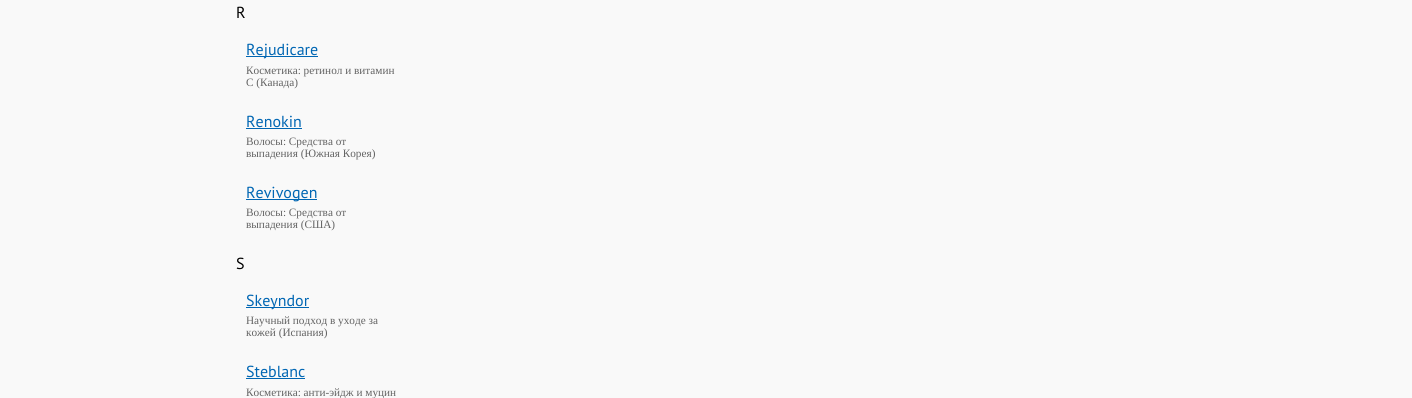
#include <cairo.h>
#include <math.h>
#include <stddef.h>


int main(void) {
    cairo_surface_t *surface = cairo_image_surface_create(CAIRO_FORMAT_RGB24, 1412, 398);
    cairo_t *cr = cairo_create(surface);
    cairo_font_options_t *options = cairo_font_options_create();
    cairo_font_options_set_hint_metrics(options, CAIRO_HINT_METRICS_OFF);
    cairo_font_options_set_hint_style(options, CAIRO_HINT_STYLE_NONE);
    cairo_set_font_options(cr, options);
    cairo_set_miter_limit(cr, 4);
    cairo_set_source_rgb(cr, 0.973, 0.973, 0.973);
    cairo_paint(cr);
    cairo_select_font_face(cr, "PT Sans", CAIRO_FONT_SLANT_NORMAL, CAIRO_FONT_WEIGHT_NORMAL);
    cairo_set_font_size(cr, 16);
    cairo_set_source_rgb(cr, 0, 0, 0);
    cairo_move_to(cr, 236, 18);
    cairo_show_text(cr, "R");
    cairo_set_source_rgb(cr, 0, 0.4, 0.702);
    cairo_rectangle(cr, 246, 56, 72, 1);
    cairo_fill(cr);
    cairo_move_to(cr, 246, 55);
    cairo_show_text(cr, "Rejudicare");
    cairo_select_font_face(cr, "Liberation Serif", CAIRO_FONT_SLANT_NORMAL, CAIRO_FONT_WEIGHT_NORMAL);
    cairo_set_font_size(cr, 11.25);
    cairo_set_source_rgb(cr, 0.388, 0.388, 0.388);
    cairo_move_to(cr, 246, 74);
    cairo_show_text(cr, "Косметика: ретинол и витамин");
    cairo_move_to(cr, 246, 86);
    cairo_show_text(cr, "C (Канада)");
    cairo_select_font_face(cr, "PT Sans", CAIRO_FONT_SLANT_NORMAL, CAIRO_FONT_WEIGHT_NORMAL);
    cairo_set_font_size(cr, 16);
    cairo_set_source_rgb(cr, 0, 0.4, 0.702);
    cairo_move_to(cr, 246, 127);
    cairo_show_text(cr, "Renokin");
    cairo_rectangle(cr, 246, 128, 56, 1);
    cairo_fill(cr);
    cairo_select_font_face(cr, "Liberation Serif", CAIRO_FONT_SLANT_NORMAL, CAIRO_FONT_WEIGHT_NORMAL);
    cairo_set_font_size(cr, 11.25);
    cairo_set_source_rgb(cr, 0.388, 0.388, 0.388);
    cairo_move_to(cr, 246, 145);
    cairo_show_text(cr, "Волосы: Средства от");
    cairo_move_to(cr, 246, 157);
    cairo_show_text(cr, "выпадения (Южная Корея)");
    cairo_set_source_rgb(cr, 0, 0.4, 0.702);
    cairo_rectangle(cr, 246, 199, 71, 1);
    cairo_fill(cr);
    cairo_select_font_face(cr, "PT Sans", CAIRO_FONT_SLANT_NORMAL, CAIRO_FONT_WEIGHT_NORMAL);
    cairo_set_font_size(cr, 16);
    cairo_move_to(cr, 246, 198);
    cairo_show_text(cr, "Revivogen");
    cairo_select_font_face(cr, "Liberation Serif", CAIRO_FONT_SLANT_NORMAL, CAIRO_FONT_WEIGHT_NORMAL);
    cairo_set_font_size(cr, 11.25);
    cairo_set_source_rgb(cr, 0.388, 0.388, 0.388);
    cairo_move_to(cr, 246, 216);
    cairo_show_text(cr, "Волосы: Средства от");
    cairo_move_to(cr, 246, 228);
    cairo_show_text(cr, "выпадения (США)");
    cairo_select_font_face(cr, "PT Sans", CAIRO_FONT_SLANT_NORMAL, CAIRO_FONT_WEIGHT_NORMAL);
    cairo_set_font_size(cr, 16);
    cairo_set_source_rgb(cr, 0, 0, 0);
    cairo_move_to(cr, 236, 269);
    cairo_show_text(cr, "S");
    cairo_set_source_rgb(cr, 0, 0.4, 0.702);
    cairo_rectangle(cr, 246, 307, 63, 1);
    cairo_fill(cr);
    cairo_move_to(cr, 246, 306);
    cairo_show_text(cr, "Skeyndor");
    cairo_select_font_face(cr, "Liberation Serif", CAIRO_FONT_SLANT_NORMAL, CAIRO_FONT_WEIGHT_NORMAL);
    cairo_set_font_size(cr, 11.25);
    cairo_set_source_rgb(cr, 0.388, 0.388, 0.388);
    cairo_move_to(cr, 246, 324);
    cairo_show_text(cr, "Научный подход в уходе за");
    cairo_move_to(cr, 246, 336);
    cairo_show_text(cr, "кожей (Испания)");
    cairo_select_font_face(cr, "PT Sans", CAIRO_FONT_SLANT_NORMAL, CAIRO_FONT_WEIGHT_NORMAL);
    cairo_set_font_size(cr, 16);
    cairo_set_source_rgb(cr, 0, 0.4, 0.702);
    cairo_move_to(cr, 246, 377);
    cairo_show_text(cr, "Steblanc");
    cairo_rectangle(cr, 246, 378, 59, 1);
    cairo_fill(cr);
    cairo_select_font_face(cr, "Liberation Serif", CAIRO_FONT_SLANT_NORMAL, CAIRO_FONT_WEIGHT_NORMAL);
    cairo_set_font_size(cr, 11.25);
    cairo_set_source_rgb(cr, 0.388, 0.388, 0.388);
    cairo_move_to(cr, 246, 396);
    cairo_show_text(cr, "Косметика: анти-эйдж и муцин");
    cairo_surface_write_to_png(surface, "page.png");
    cairo_font_options_destroy(options);
    cairo_destroy(cr);
    cairo_surface_destroy(surface);
    return 0;
}
